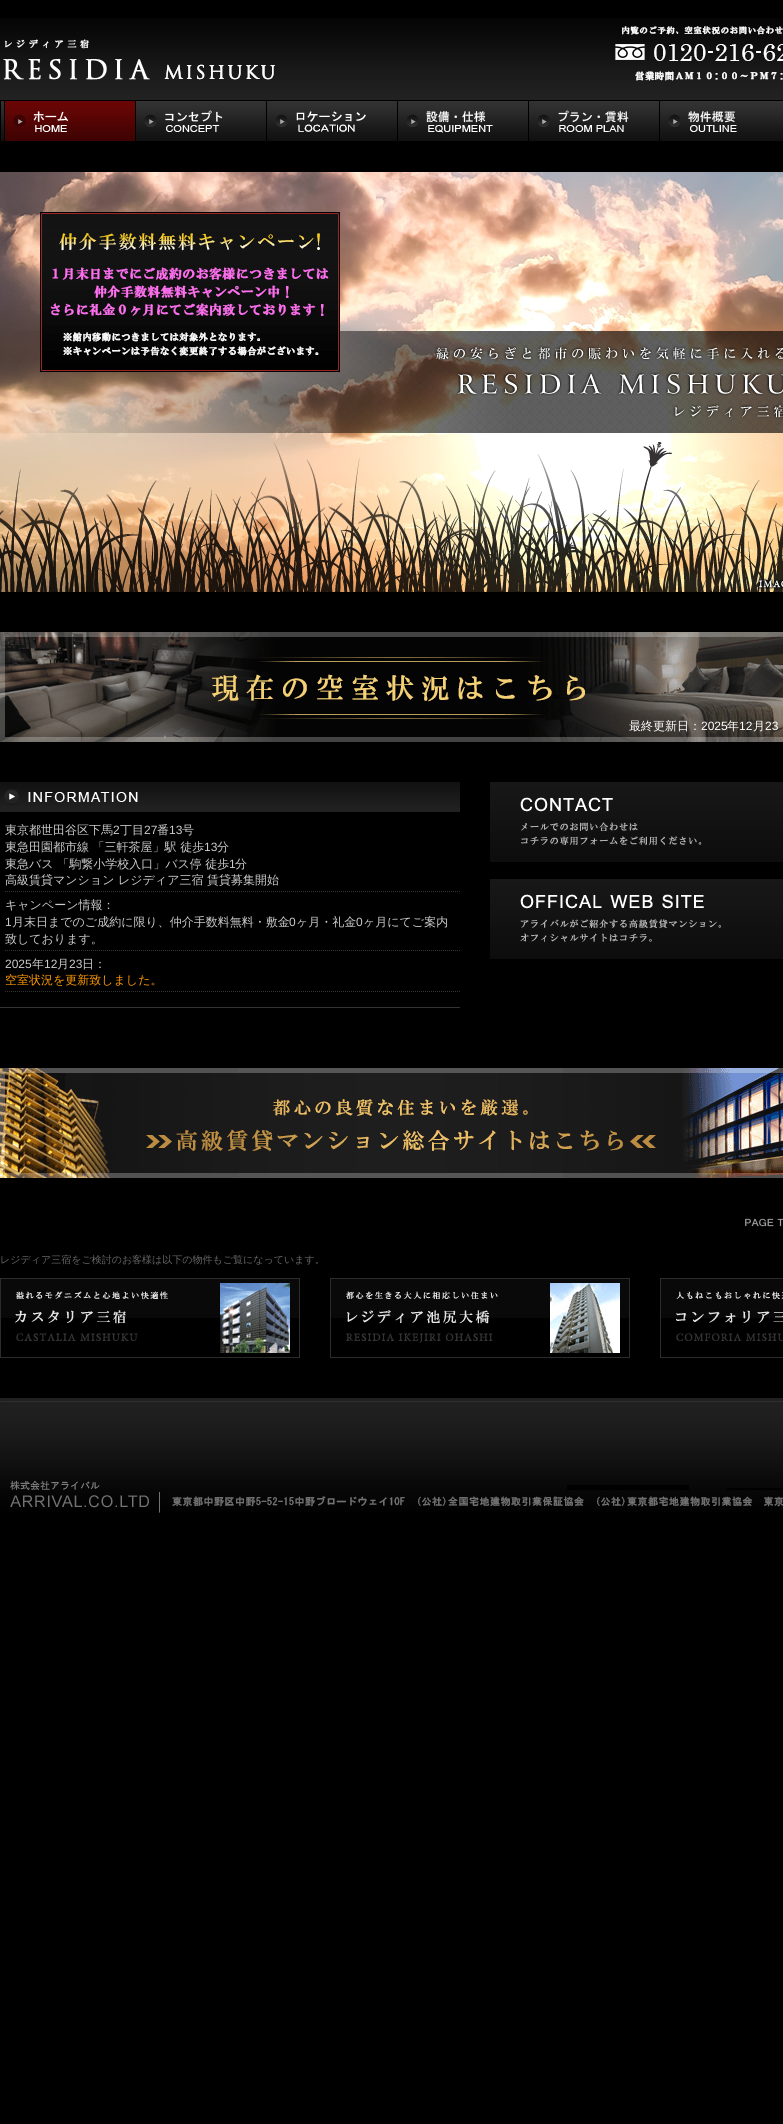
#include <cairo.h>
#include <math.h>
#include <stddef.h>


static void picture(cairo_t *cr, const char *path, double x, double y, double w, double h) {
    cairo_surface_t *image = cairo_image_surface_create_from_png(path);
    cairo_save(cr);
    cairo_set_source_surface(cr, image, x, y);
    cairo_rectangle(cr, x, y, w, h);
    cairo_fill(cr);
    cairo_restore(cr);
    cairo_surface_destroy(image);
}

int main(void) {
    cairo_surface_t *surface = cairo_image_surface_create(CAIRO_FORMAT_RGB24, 783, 2124);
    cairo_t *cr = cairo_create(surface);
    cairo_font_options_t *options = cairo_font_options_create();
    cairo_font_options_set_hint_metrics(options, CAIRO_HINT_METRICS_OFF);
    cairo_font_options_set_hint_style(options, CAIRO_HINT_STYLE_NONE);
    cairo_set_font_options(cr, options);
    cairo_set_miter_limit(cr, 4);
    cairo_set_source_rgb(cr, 0, 0, 0);
    cairo_paint(cr);
    picture(cr, "img1.png", 0, 18, 3, 82);
    picture(cr, "img2.png", 3, 18, 580, 82);
    picture(cr, "img3.png", 583, 18, 200, 82);
    picture(cr, "img4.png", 1, 101, 3, 40);
    picture(cr, "img5.png", 5, 101, 130, 40);
    picture(cr, "img6.png", 136, 101, 130, 40);
    picture(cr, "img7.png", 267, 101, 130, 40);
    picture(cr, "img8.png", 398, 101, 130, 40);
    picture(cr, "img9.png", 529, 101, 130, 40);
    picture(cr, "img10.png", 660, 101, 123, 40);
    picture(cr, "img11.png", 0, 172, 783, 420);
    picture(cr, "img12.png", 40, 212, 300, 160);
    picture(cr, "img13.png", 0, 632, 783, 110);
    cairo_select_font_face(cr, "WenQuanYi Zen Hei Medium", CAIRO_FONT_SLANT_NORMAL, CAIRO_FONT_WEIGHT_NORMAL);
    cairo_set_font_size(cr, 12);
    cairo_set_source_rgb(cr, 1, 1, 1);
    cairo_move_to(cr, 629, 730);
    cairo_show_text(cr, "最終更新日：");
    cairo_select_font_face(cr, "Liberation Sans", CAIRO_FONT_SLANT_NORMAL, CAIRO_FONT_WEIGHT_NORMAL);
    cairo_move_to(cr, 701, 730);
    cairo_show_text(cr, "2025");
    cairo_select_font_face(cr, "WenQuanYi Zen Hei Medium", CAIRO_FONT_SLANT_NORMAL, CAIRO_FONT_WEIGHT_NORMAL);
    cairo_move_to(cr, 727, 730);
    cairo_show_text(cr, "年");
    cairo_select_font_face(cr, "Liberation Sans", CAIRO_FONT_SLANT_NORMAL, CAIRO_FONT_WEIGHT_NORMAL);
    cairo_move_to(cr, 739, 730);
    cairo_show_text(cr, "12");
    cairo_select_font_face(cr, "WenQuanYi Zen Hei Medium", CAIRO_FONT_SLANT_NORMAL, CAIRO_FONT_WEIGHT_NORMAL);
    cairo_move_to(cr, 753, 730);
    cairo_show_text(cr, "月");
    cairo_select_font_face(cr, "Liberation Sans", CAIRO_FONT_SLANT_NORMAL, CAIRO_FONT_WEIGHT_NORMAL);
    cairo_move_to(cr, 765, 730);
    cairo_show_text(cr, "23");
    cairo_set_source_rgb(cr, 0.2, 0.2, 0.2);
    cairo_rectangle(cr, 0, 1007, 460, 1);
    cairo_fill(cr);
    picture(cr, "img14.png", 0, 782, 460, 30);
    cairo_new_path(cr);
    cairo_move_to(cr, 5, 891.5);
    cairo_line_to(cr, 460, 891.5);
    cairo_set_line_width(cr, 1);
    cairo_set_dash(cr, (double[]){1, 1}, 2, 0);
    cairo_stroke(cr);
    cairo_select_font_face(cr, "WenQuanYi Zen Hei Medium", CAIRO_FONT_SLANT_NORMAL, CAIRO_FONT_WEIGHT_NORMAL);
    cairo_set_source_rgb(cr, 0.8, 0.8, 0.8);
    cairo_move_to(cr, 5, 834);
    cairo_show_text(cr, "東京都世田谷区下馬");
    cairo_select_font_face(cr, "Liberation Sans", CAIRO_FONT_SLANT_NORMAL, CAIRO_FONT_WEIGHT_NORMAL);
    cairo_move_to(cr, 113, 834);
    cairo_show_text(cr, "2");
    cairo_select_font_face(cr, "WenQuanYi Zen Hei Medium", CAIRO_FONT_SLANT_NORMAL, CAIRO_FONT_WEIGHT_NORMAL);
    cairo_move_to(cr, 120, 834);
    cairo_show_text(cr, "丁目");
    cairo_select_font_face(cr, "Liberation Sans", CAIRO_FONT_SLANT_NORMAL, CAIRO_FONT_WEIGHT_NORMAL);
    cairo_move_to(cr, 144, 834);
    cairo_show_text(cr, "27");
    cairo_select_font_face(cr, "WenQuanYi Zen Hei Medium", CAIRO_FONT_SLANT_NORMAL, CAIRO_FONT_WEIGHT_NORMAL);
    cairo_move_to(cr, 157, 834);
    cairo_show_text(cr, "番");
    cairo_select_font_face(cr, "Liberation Sans", CAIRO_FONT_SLANT_NORMAL, CAIRO_FONT_WEIGHT_NORMAL);
    cairo_move_to(cr, 169, 834);
    cairo_show_text(cr, "13");
    cairo_select_font_face(cr, "WenQuanYi Zen Hei Medium", CAIRO_FONT_SLANT_NORMAL, CAIRO_FONT_WEIGHT_NORMAL);
    cairo_move_to(cr, 182, 834);
    cairo_show_text(cr, "号");
    cairo_move_to(cr, 5, 851);
    cairo_show_text(cr, "東急田園都市線 「三軒茶屋」駅 徒歩");
    cairo_select_font_face(cr, "Liberation Sans", CAIRO_FONT_SLANT_NORMAL, CAIRO_FONT_WEIGHT_NORMAL);
    cairo_move_to(cr, 204, 851);
    cairo_show_text(cr, "13");
    cairo_select_font_face(cr, "WenQuanYi Zen Hei Medium", CAIRO_FONT_SLANT_NORMAL, CAIRO_FONT_WEIGHT_NORMAL);
    cairo_move_to(cr, 217, 851);
    cairo_show_text(cr, "分");
    cairo_move_to(cr, 5, 868);
    cairo_show_text(cr, "東急バス 「駒繋小学校入口」バス停 徒歩");
    cairo_select_font_face(cr, "Liberation Sans", CAIRO_FONT_SLANT_NORMAL, CAIRO_FONT_WEIGHT_NORMAL);
    cairo_move_to(cr, 229, 868);
    cairo_show_text(cr, "1");
    cairo_select_font_face(cr, "WenQuanYi Zen Hei Medium", CAIRO_FONT_SLANT_NORMAL, CAIRO_FONT_WEIGHT_NORMAL);
    cairo_move_to(cr, 235, 868);
    cairo_show_text(cr, "分");
    cairo_move_to(cr, 5, 884);
    cairo_show_text(cr, "高級賃貸マンション レジディア三宿 賃貸募集開始");
    cairo_new_path(cr);
    cairo_move_to(cr, 5, 950.5);
    cairo_line_to(cr, 460, 950.5);
    cairo_set_source_rgb(cr, 0.2, 0.2, 0.2);
    cairo_stroke(cr);
    cairo_set_source_rgb(cr, 0.8, 0.8, 0.8);
    cairo_move_to(cr, 5, 909);
    cairo_show_text(cr, "キャンペーン情報：");
    cairo_select_font_face(cr, "Liberation Sans", CAIRO_FONT_SLANT_NORMAL, CAIRO_FONT_WEIGHT_NORMAL);
    cairo_move_to(cr, 5, 926);
    cairo_show_text(cr, "1");
    cairo_select_font_face(cr, "WenQuanYi Zen Hei Medium", CAIRO_FONT_SLANT_NORMAL, CAIRO_FONT_WEIGHT_NORMAL);
    cairo_move_to(cr, 12, 926);
    cairo_show_text(cr, "月末日までのご成約に限り、仲介手数料無料・敷金");
    cairo_select_font_face(cr, "Liberation Sans", CAIRO_FONT_SLANT_NORMAL, CAIRO_FONT_WEIGHT_NORMAL);
    cairo_move_to(cr, 289, 926);
    cairo_show_text(cr, "0");
    cairo_select_font_face(cr, "WenQuanYi Zen Hei Medium", CAIRO_FONT_SLANT_NORMAL, CAIRO_FONT_WEIGHT_NORMAL);
    cairo_move_to(cr, 296, 926);
    cairo_show_text(cr, "ヶ月・礼金");
    cairo_select_font_face(cr, "Liberation Sans", CAIRO_FONT_SLANT_NORMAL, CAIRO_FONT_WEIGHT_NORMAL);
    cairo_move_to(cr, 356, 926);
    cairo_show_text(cr, "0");
    cairo_select_font_face(cr, "WenQuanYi Zen Hei Medium", CAIRO_FONT_SLANT_NORMAL, CAIRO_FONT_WEIGHT_NORMAL);
    cairo_move_to(cr, 363, 926);
    cairo_show_text(cr, "ヶ月にてご案内");
    cairo_move_to(cr, 5, 943);
    cairo_show_text(cr, "致しております。");
    cairo_new_path(cr);
    cairo_move_to(cr, 5, 991.5);
    cairo_line_to(cr, 460, 991.5);
    cairo_set_source_rgb(cr, 0.2, 0.2, 0.2);
    cairo_stroke(cr);
    cairo_select_font_face(cr, "Liberation Sans", CAIRO_FONT_SLANT_NORMAL, CAIRO_FONT_WEIGHT_NORMAL);
    cairo_set_source_rgb(cr, 0.8, 0.8, 0.8);
    cairo_move_to(cr, 5, 968);
    cairo_show_text(cr, "2025");
    cairo_select_font_face(cr, "WenQuanYi Zen Hei Medium", CAIRO_FONT_SLANT_NORMAL, CAIRO_FONT_WEIGHT_NORMAL);
    cairo_move_to(cr, 32, 968);
    cairo_show_text(cr, "年");
    cairo_select_font_face(cr, "Liberation Sans", CAIRO_FONT_SLANT_NORMAL, CAIRO_FONT_WEIGHT_NORMAL);
    cairo_move_to(cr, 44, 968);
    cairo_show_text(cr, "12");
    cairo_select_font_face(cr, "WenQuanYi Zen Hei Medium", CAIRO_FONT_SLANT_NORMAL, CAIRO_FONT_WEIGHT_NORMAL);
    cairo_move_to(cr, 57, 968);
    cairo_show_text(cr, "月");
    cairo_select_font_face(cr, "Liberation Sans", CAIRO_FONT_SLANT_NORMAL, CAIRO_FONT_WEIGHT_NORMAL);
    cairo_move_to(cr, 69, 968);
    cairo_show_text(cr, "23");
    cairo_select_font_face(cr, "WenQuanYi Zen Hei Medium", CAIRO_FONT_SLANT_NORMAL, CAIRO_FONT_WEIGHT_NORMAL);
    cairo_move_to(cr, 82, 968);
    cairo_show_text(cr, "日：");
    cairo_set_source_rgb(cr, 1, 0.6, 0);
    cairo_move_to(cr, 5, 984);
    cairo_show_text(cr, "空室状況を更新致しました。");
    picture(cr, "img15.png", 490, 782, 293, 80);
    picture(cr, "img16.png", 490, 879, 293, 80);
    picture(cr, "img17.png", 0, 1068, 783, 110);
    picture(cr, "img18.png", 745, 1218, 38, 9);
    cairo_set_font_size(cr, 10);
    cairo_set_source_rgb(cr, 0.4, 0.4, 0.4);
    cairo_move_to(cr, 0, 1263);
    cairo_show_text(cr, "レジディア三宿をご検討のお客様は以下の物件もご覧になっています。");
    picture(cr, "img19.png", 0, 1278, 300, 80);
    picture(cr, "img20.png", 330, 1278, 300, 80);
    picture(cr, "img21.png", 660, 1278, 123, 80);
    picture(cr, "img22.png", 0, 1398, 783, 3);
    picture(cr, "img23.png", 0, 1401, 783, 112);
    cairo_surface_write_to_png(surface, "page.png");
    cairo_font_options_destroy(options);
    cairo_destroy(cr);
    cairo_surface_destroy(surface);
    return 0;
}
